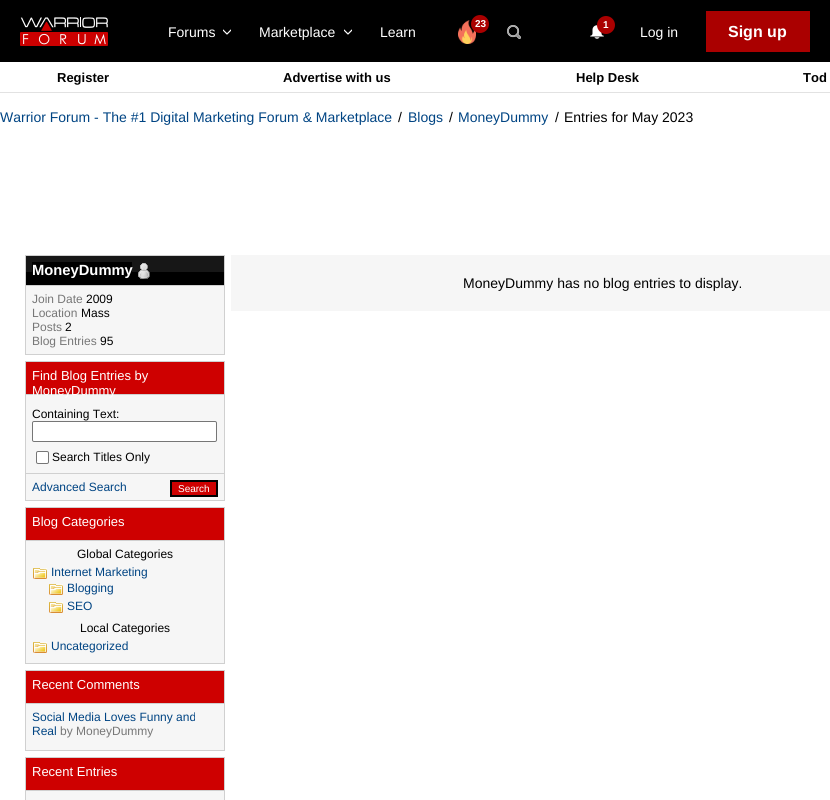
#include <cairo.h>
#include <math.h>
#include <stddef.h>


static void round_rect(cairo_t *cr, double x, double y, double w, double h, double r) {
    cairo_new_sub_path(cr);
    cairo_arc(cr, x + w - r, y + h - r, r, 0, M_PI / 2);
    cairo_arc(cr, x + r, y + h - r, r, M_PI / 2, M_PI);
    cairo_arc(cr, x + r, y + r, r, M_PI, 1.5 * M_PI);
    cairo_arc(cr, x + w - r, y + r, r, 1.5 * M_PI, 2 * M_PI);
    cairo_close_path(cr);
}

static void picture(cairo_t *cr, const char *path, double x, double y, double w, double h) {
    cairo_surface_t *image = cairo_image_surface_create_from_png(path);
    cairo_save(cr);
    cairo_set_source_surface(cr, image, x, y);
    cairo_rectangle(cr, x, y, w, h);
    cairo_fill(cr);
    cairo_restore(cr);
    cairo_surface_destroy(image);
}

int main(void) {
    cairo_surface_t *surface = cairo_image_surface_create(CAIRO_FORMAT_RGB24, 830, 800);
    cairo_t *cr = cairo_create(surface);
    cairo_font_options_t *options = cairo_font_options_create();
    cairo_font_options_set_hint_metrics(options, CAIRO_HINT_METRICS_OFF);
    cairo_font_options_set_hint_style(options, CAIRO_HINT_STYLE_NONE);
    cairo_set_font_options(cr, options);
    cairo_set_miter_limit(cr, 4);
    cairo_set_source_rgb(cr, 1, 1, 1);
    cairo_paint(cr);
    cairo_set_source_rgb(cr, 0, 0, 0);
    cairo_rectangle(cr, 0, 0, 830, 62);
    cairo_fill(cr);
    picture(cr, "img1.png", 20, 17, 88, 29);
    picture(cr, "img2.png", 458, 20, 18, 24);
    cairo_set_source_rgb(cr, 0.667, 0, 0);
    cairo_arc(cr, 480, 24, 9, 0, 2 * M_PI);
    cairo_fill(cr);
    cairo_select_font_face(cr, "Liberation Sans", CAIRO_FONT_SLANT_NORMAL, CAIRO_FONT_WEIGHT_BOLD);
    cairo_set_font_size(cr, 10);
    cairo_set_source_rgb(cr, 1, 1, 1);
    cairo_move_to(cr, 475, 27);
    cairo_show_text(cr, "23");
    cairo_select_font_face(cr, "Liberation Sans", CAIRO_FONT_SLANT_NORMAL, CAIRO_FONT_WEIGHT_NORMAL);
    cairo_set_font_size(cr, 14);
    cairo_move_to(cr, 168, 37);
    cairo_show_text(cr, "Forums");
    cairo_save(cr);
    cairo_rectangle(cr, 223, 20, 8, 24);
    cairo_clip(cr);
    cairo_new_path(cr);
    cairo_move_to(cr, 223, 30);
    cairo_line_to(cr, 227, 34);
    cairo_line_to(cr, 231, 30);
    cairo_set_line_width(cr, 1.2);
    cairo_set_line_cap(cr, CAIRO_LINE_CAP_ROUND);
    cairo_set_line_join(cr, CAIRO_LINE_JOIN_ROUND);
    cairo_stroke(cr);
    cairo_restore(cr);
    cairo_move_to(cr, 259, 37);
    cairo_show_text(cr, "Marketplace");
    cairo_save(cr);
    cairo_rectangle(cr, 344, 20, 8, 24);
    cairo_clip(cr);
    cairo_new_path(cr);
    cairo_move_to(cr, 344, 30);
    cairo_line_to(cr, 348, 34);
    cairo_line_to(cr, 352, 30);
    cairo_set_line_width(cr, 1.2);
    cairo_set_line_cap(cr, CAIRO_LINE_CAP_ROUND);
    cairo_set_line_join(cr, CAIRO_LINE_JOIN_ROUND);
    cairo_stroke(cr);
    cairo_restore(cr);
    cairo_move_to(cr, 380, 37);
    cairo_show_text(cr, "Learn");
    picture(cr, "img3.png", 507, 25, 14, 14);
    picture(cr, "img4.png", 590, 25, 14, 14);
    cairo_set_source_rgb(cr, 0.667, 0, 0);
    cairo_arc(cr, 606, 25, 9, 0, 2 * M_PI);
    cairo_fill(cr);
    cairo_select_font_face(cr, "Liberation Sans", CAIRO_FONT_SLANT_NORMAL, CAIRO_FONT_WEIGHT_BOLD);
    cairo_set_font_size(cr, 10);
    cairo_set_source_rgb(cr, 1, 1, 1);
    cairo_move_to(cr, 603, 28);
    cairo_show_text(cr, "1");
    cairo_select_font_face(cr, "Liberation Sans", CAIRO_FONT_SLANT_NORMAL, CAIRO_FONT_WEIGHT_NORMAL);
    cairo_set_font_size(cr, 14);
    cairo_move_to(cr, 640, 37);
    cairo_show_text(cr, "Log in");
    cairo_set_source_rgb(cr, 0.667, 0, 0);
    cairo_rectangle(cr, 706, 11, 104, 41);
    cairo_fill(cr);
    cairo_select_font_face(cr, "Liberation Sans", CAIRO_FONT_SLANT_NORMAL, CAIRO_FONT_WEIGHT_BOLD);
    cairo_set_font_size(cr, 16);
    cairo_set_source_rgb(cr, 1, 1, 1);
    cairo_move_to(cr, 728, 37);
    cairo_show_text(cr, "Sign up");
    cairo_set_source_rgb(cr, 0.886, 0.886, 0.886);
    cairo_rectangle(cr, 0, 92, 830, 1);
    cairo_fill(cr);
    cairo_set_font_size(cr, 13);
    cairo_set_source_rgb(cr, 0, 0, 0);
    cairo_move_to(cr, 57, 82);
    cairo_show_text(cr, "Register");
    cairo_move_to(cr, 283, 82);
    cairo_show_text(cr, "Advertise with us");
    cairo_move_to(cr, 576, 82);
    cairo_show_text(cr, "Help Desk");
    cairo_move_to(cr, 803, 82);
    cairo_show_text(cr, "Tod");
    cairo_select_font_face(cr, "Liberation Sans", CAIRO_FONT_SLANT_NORMAL, CAIRO_FONT_WEIGHT_NORMAL);
    cairo_set_font_size(cr, 14);
    cairo_set_source_rgb(cr, 0, 0.267, 0.514);
    cairo_move_to(cr, 0, 122);
    cairo_show_text(cr, "Warrior Forum - The #1 Digital Marketing Forum & Marketplace");
    cairo_set_source_rgb(cr, 0, 0, 0);
    cairo_move_to(cr, 398, 122);
    cairo_show_text(cr, "/");
    cairo_set_source_rgb(cr, 0, 0.267, 0.514);
    cairo_move_to(cr, 408, 122);
    cairo_show_text(cr, "Blogs");
    cairo_set_source_rgb(cr, 0, 0, 0);
    cairo_move_to(cr, 449, 122);
    cairo_show_text(cr, "/");
    cairo_set_source_rgb(cr, 0, 0.267, 0.514);
    cairo_move_to(cr, 458, 122);
    cairo_show_text(cr, "MoneyDummy");
    cairo_set_source_rgb(cr, 0, 0, 0);
    cairo_move_to(cr, 555, 122);
    cairo_show_text(cr, "/");
    cairo_move_to(cr, 564, 122);
    cairo_show_text(cr, "Entries for May 2023");
    cairo_set_source_rgb(cr, 0.816, 0.816, 0.816);
    cairo_rectangle(cr, 25, 255, 200, 100);
    cairo_fill(cr);
    cairo_set_source_rgb(cr, 0, 0, 0);
    cairo_rectangle(cr, 26, 272, 198, 13);
    cairo_fill(cr);
    cairo_set_source_rgb(cr, 0.09, 0.09, 0.09);
    cairo_rectangle(cr, 26, 256, 198, 16);
    cairo_fill(cr);
    cairo_set_source_rgb(cr, 0, 0, 0);
    cairo_rectangle(cr, 32, 262, 100, 10);
    cairo_fill(cr);
    cairo_select_font_face(cr, "Liberation Sans", CAIRO_FONT_SLANT_NORMAL, CAIRO_FONT_WEIGHT_BOLD);
    cairo_set_font_size(cr, 14.75);
    cairo_set_source_rgb(cr, 1, 1, 1);
    cairo_move_to(cr, 32, 275);
    cairo_show_text(cr, "MoneyDummy");
    picture(cr, "img5.png", 138, 263, 12, 16);
    cairo_set_source_rgb(cr, 0.961, 0.961, 0.961);
    cairo_rectangle(cr, 26, 286, 198, 68);
    cairo_fill(cr);
    cairo_select_font_face(cr, "Liberation Sans", CAIRO_FONT_SLANT_NORMAL, CAIRO_FONT_WEIGHT_NORMAL);
    cairo_set_font_size(cr, 12);
    cairo_set_source_rgb(cr, 0.467, 0.467, 0.467);
    cairo_move_to(cr, 32, 303);
    cairo_show_text(cr, "Join Date");
    cairo_set_source_rgb(cr, 0, 0, 0);
    cairo_move_to(cr, 86, 303);
    cairo_show_text(cr, "2009");
    cairo_set_source_rgb(cr, 0.467, 0.467, 0.467);
    cairo_move_to(cr, 32, 317);
    cairo_show_text(cr, "Location");
    cairo_set_source_rgb(cr, 0, 0, 0);
    cairo_move_to(cr, 81, 317);
    cairo_show_text(cr, "Mass");
    cairo_set_source_rgb(cr, 0.467, 0.467, 0.467);
    cairo_move_to(cr, 32, 331);
    cairo_show_text(cr, "Posts");
    cairo_set_source_rgb(cr, 0, 0, 0);
    cairo_move_to(cr, 65, 331);
    cairo_show_text(cr, "2");
    cairo_set_source_rgb(cr, 0.467, 0.467, 0.467);
    cairo_move_to(cr, 32, 345);
    cairo_show_text(cr, "Blog Entries");
    cairo_set_source_rgb(cr, 0, 0, 0);
    cairo_move_to(cr, 100, 345);
    cairo_show_text(cr, "95");
    cairo_set_source_rgb(cr, 0.816, 0.816, 0.816);
    cairo_rectangle(cr, 25, 361, 200, 140);
    cairo_fill(cr);
    cairo_set_source_rgb(cr, 0.808, 0, 0);
    cairo_rectangle(cr, 26, 362, 198, 32);
    cairo_fill(cr);
    cairo_set_font_size(cr, 13);
    cairo_set_source_rgb(cr, 1, 1, 1);
    cairo_move_to(cr, 32, 380);
    cairo_show_text(cr, "Find Blog Entries by");
    cairo_set_source_rgb(cr, 0.961, 0.961, 0.961);
    cairo_rectangle(cr, 26, 395, 198, 78);
    cairo_fill(cr);
    cairo_set_source_rgb(cr, 1, 1, 1);
    cairo_move_to(cr, 32, 395);
    cairo_show_text(cr, "MoneyDummy");
    cairo_set_font_size(cr, 12);
    cairo_set_source_rgb(cr, 0, 0, 0);
    cairo_move_to(cr, 32, 418);
    cairo_show_text(cr, "Containing Text:");
    cairo_set_source_rgb(cr, 1, 1, 1);
    round_rect(cr, 32.5, 421.5, 184, 20, 1.5);
    cairo_fill_preserve(cr);
    cairo_set_source_rgb(cr, 0.463, 0.463, 0.463);
    cairo_set_line_width(cr, 1);
    cairo_stroke(cr);
    cairo_set_source_rgb(cr, 1, 1, 1);
    round_rect(cr, 36.5, 451.5, 12, 12, 1.5);
    cairo_fill_preserve(cr);
    cairo_set_source_rgb(cr, 0.463, 0.463, 0.463);
    cairo_stroke(cr);
    cairo_set_source_rgb(cr, 0, 0, 0);
    cairo_move_to(cr, 52, 461);
    cairo_show_text(cr, "Search Titles Only");
    cairo_set_source_rgb(cr, 0.961, 0.961, 0.961);
    cairo_rectangle(cr, 26, 474, 198, 26);
    cairo_fill(cr);
    cairo_set_source_rgb(cr, 0, 0.267, 0.514);
    cairo_move_to(cr, 32, 491);
    cairo_show_text(cr, "Advanced Search");
    cairo_set_source_rgb(cr, 0.808, 0, 0);
    cairo_rectangle(cr, 171, 481, 46, 15);
    cairo_fill_preserve(cr);
    cairo_set_source_rgb(cr, 0, 0, 0);
    cairo_set_line_width(cr, 2);
    cairo_stroke(cr);
    cairo_set_font_size(cr, 10);
    cairo_set_source_rgb(cr, 1, 1, 1);
    cairo_move_to(cr, 178, 492);
    cairo_show_text(cr, "Search");
    cairo_set_source_rgb(cr, 0.816, 0.816, 0.816);
    cairo_rectangle(cr, 25, 507, 200, 157);
    cairo_fill(cr);
    cairo_set_source_rgb(cr, 0.808, 0, 0);
    cairo_rectangle(cr, 26, 508, 198, 32);
    cairo_fill(cr);
    cairo_set_font_size(cr, 13);
    cairo_set_source_rgb(cr, 1, 1, 1);
    cairo_move_to(cr, 32, 526);
    cairo_show_text(cr, "Blog Categories");
    cairo_set_source_rgb(cr, 0.961, 0.961, 0.961);
    cairo_rectangle(cr, 26, 541, 198, 122);
    cairo_fill(cr);
    cairo_set_font_size(cr, 12);
    cairo_set_source_rgb(cr, 0, 0, 0);
    cairo_move_to(cr, 77, 558);
    cairo_show_text(cr, "Global Categories");
    picture(cr, "img6.png", 33, 568, 14, 11);
    cairo_set_source_rgb(cr, 0, 0.267, 0.514);
    cairo_move_to(cr, 51, 576);
    cairo_show_text(cr, "Internet Marketing");
    picture(cr, "img6.png", 49, 584, 14, 11);
    cairo_move_to(cr, 67, 592);
    cairo_show_text(cr, "Blogging");
    picture(cr, "img6.png", 49, 602, 14, 11);
    cairo_move_to(cr, 67, 610);
    cairo_show_text(cr, "SEO");
    cairo_set_source_rgb(cr, 0, 0, 0);
    cairo_move_to(cr, 80, 632);
    cairo_show_text(cr, "Local Categories");
    picture(cr, "img6.png", 33, 642, 14, 11);
    cairo_set_source_rgb(cr, 0, 0.267, 0.514);
    cairo_move_to(cr, 51, 650);
    cairo_show_text(cr, "Uncategorized");
    cairo_set_source_rgb(cr, 0.816, 0.816, 0.816);
    cairo_rectangle(cr, 25, 670, 200, 81);
    cairo_fill(cr);
    cairo_set_source_rgb(cr, 0.808, 0, 0);
    cairo_rectangle(cr, 26, 671, 198, 32);
    cairo_fill(cr);
    cairo_set_font_size(cr, 13);
    cairo_set_source_rgb(cr, 1, 1, 1);
    cairo_move_to(cr, 32, 689);
    cairo_show_text(cr, "Recent Comments");
    cairo_set_source_rgb(cr, 0.961, 0.961, 0.961);
    cairo_rectangle(cr, 26, 704, 198, 46);
    cairo_fill(cr);
    cairo_set_font_size(cr, 12);
    cairo_set_source_rgb(cr, 0, 0.267, 0.514);
    cairo_move_to(cr, 32, 721);
    cairo_show_text(cr, "Social Media Loves Funny and");
    cairo_move_to(cr, 32, 735);
    cairo_show_text(cr, "Real");
    cairo_set_source_rgb(cr, 0.467, 0.467, 0.467);
    cairo_move_to(cr, 60, 735);
    cairo_show_text(cr, "by MoneyDummy");
    cairo_set_source_rgb(cr, 0.816, 0.816, 0.816);
    cairo_rectangle(cr, 25, 757, 200, 43);
    cairo_fill(cr);
    cairo_set_source_rgb(cr, 0.808, 0, 0);
    cairo_rectangle(cr, 26, 758, 198, 32);
    cairo_fill(cr);
    cairo_set_font_size(cr, 13);
    cairo_set_source_rgb(cr, 1, 1, 1);
    cairo_move_to(cr, 32, 776);
    cairo_show_text(cr, "Recent Entries");
    cairo_set_source_rgb(cr, 0.961, 0.961, 0.961);
    cairo_rectangle(cr, 26, 791, 198, 9);
    cairo_fill(cr);
    cairo_rectangle(cr, 231, 255, 599, 56);
    cairo_fill(cr);
    cairo_set_font_size(cr, 14);
    cairo_set_source_rgb(cr, 0, 0, 0);
    cairo_move_to(cr, 463, 288);
    cairo_show_text(cr, "MoneyDummy has no blog entries to display.");
    cairo_surface_write_to_png(surface, "page.png");
    cairo_font_options_destroy(options);
    cairo_destroy(cr);
    cairo_surface_destroy(surface);
    return 0;
}
